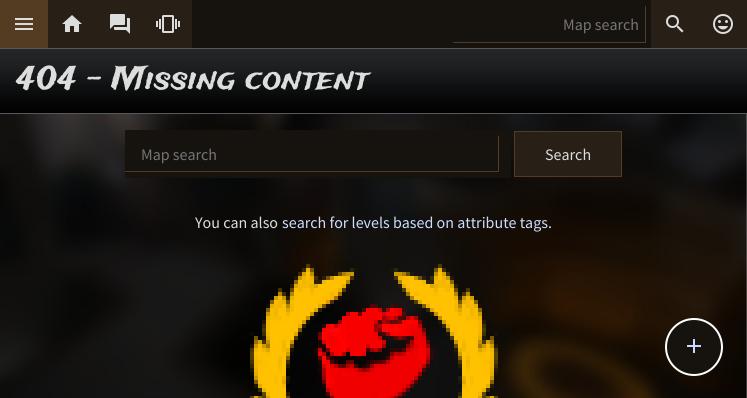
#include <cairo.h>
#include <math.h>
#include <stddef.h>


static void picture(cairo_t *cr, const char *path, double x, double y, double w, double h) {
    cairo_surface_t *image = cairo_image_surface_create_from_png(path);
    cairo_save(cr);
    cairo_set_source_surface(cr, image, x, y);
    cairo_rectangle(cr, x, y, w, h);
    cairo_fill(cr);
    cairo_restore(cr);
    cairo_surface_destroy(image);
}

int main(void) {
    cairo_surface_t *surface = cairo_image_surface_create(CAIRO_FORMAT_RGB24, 747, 398);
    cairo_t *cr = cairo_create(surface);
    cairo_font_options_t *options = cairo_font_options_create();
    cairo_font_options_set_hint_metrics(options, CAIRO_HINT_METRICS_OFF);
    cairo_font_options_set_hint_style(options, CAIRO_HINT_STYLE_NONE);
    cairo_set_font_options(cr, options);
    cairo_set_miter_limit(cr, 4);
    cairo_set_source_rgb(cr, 1, 1, 1);
    cairo_paint(cr);
    cairo_set_source_rgb(cr, 0.086, 0.075, 0.059);
    cairo_rectangle(cr, 192, 0, 459, 48);
    cairo_fill(cr);
    cairo_set_source_rgb(cr, 0.329, 0.235, 0.133);
    cairo_rectangle(cr, 0, 0, 48, 48);
    cairo_fill(cr);
    picture(cr, "img1.png", 15, 18, 18, 12);
    cairo_set_source_rgb(cr, 0.157, 0.125, 0.086);
    cairo_rectangle(cr, 48, 0, 144, 48);
    cairo_fill(cr);
    picture(cr, "img2.png", 62, 15, 20, 17);
    cairo_rectangle(cr, 651, 0, 96, 48);
    cairo_fill(cr);
    picture(cr, "img3.png", 666, 15, 18, 18);
    picture(cr, "img4.png", 713, 14, 20, 20);
    picture(cr, "img5.png", 110, 14, 20, 20);
    picture(cr, "img6.png", 156, 15, 24, 18);
    cairo_set_source_rgb(cr, 0.329, 0.235, 0.133);
    cairo_rectangle(cr, 645, 6, 1, 37);
    cairo_fill(cr);
    cairo_rectangle(cr, 453, 42, 193, 1);
    cairo_fill(cr);
    cairo_select_font_face(cr, "Source Sans Pro", CAIRO_FONT_SLANT_NORMAL, CAIRO_FONT_WEIGHT_NORMAL);
    cairo_set_font_size(cr, 16);
    cairo_set_source_rgb(cr, 0.459, 0.459, 0.459);
    cairo_move_to(cr, 563, 30);
    cairo_show_text(cr, "Map search");
    picture(cr, "img7.png", 0, 49, 747, 64);
    cairo_set_source_rgb(cr, 0.337, 0.345, 0.365);
    cairo_rectangle(cr, 0, 48, 747, 1);
    cairo_fill(cr);
    cairo_rectangle(cr, 0, 113, 747, 1);
    cairo_fill(cr);
    cairo_select_font_face(cr, "Trade Winds", CAIRO_FONT_SLANT_NORMAL, CAIRO_FONT_WEIGHT_NORMAL);
    cairo_set_font_size(cr, 32);
    cairo_set_source_rgb(cr, 0.867, 0.867, 0.867);
    cairo_move_to(cr, 16, 89);
    cairo_show_text(cr, "404 - Missing content");
    picture(cr, "img8.png", 0, 114, 747, 284);
    cairo_set_source_rgb(cr, 0.086, 0.075, 0.059);
    cairo_rectangle(cr, 125, 130, 386, 48);
    cairo_fill(cr);
    cairo_set_source_rgb(cr, 0.329, 0.235, 0.133);
    cairo_rectangle(cr, 498, 136, 1, 36);
    cairo_fill(cr);
    cairo_rectangle(cr, 125, 171, 374, 1);
    cairo_fill(cr);
    cairo_select_font_face(cr, "Source Sans Pro", CAIRO_FONT_SLANT_NORMAL, CAIRO_FONT_WEIGHT_NORMAL);
    cairo_set_font_size(cr, 16);
    cairo_set_source_rgb(cr, 0.459, 0.459, 0.459);
    cairo_move_to(cr, 141, 160);
    cairo_show_text(cr, "Map search");
    cairo_set_source_rgb(cr, 0.157, 0.125, 0.086);
    cairo_rectangle(cr, 514.5, 131.5, 107, 45);
    cairo_fill_preserve(cr);
    cairo_set_source_rgb(cr, 0.329, 0.235, 0.133);
    cairo_set_line_width(cr, 1);
    cairo_stroke(cr);
    cairo_set_source_rgb(cr, 0.867, 0.867, 0.867);
    cairo_move_to(cr, 545, 160);
    cairo_show_text(cr, "Search");
    cairo_move_to(cr, 195, 228);
    cairo_show_text(cr, "You can also");
    cairo_set_source_rgb(cr, 0.8, 0.867, 1);
    cairo_move_to(cr, 282, 228);
    cairo_show_text(cr, "search for levels based on attribute tags");
    cairo_set_source_rgb(cr, 0.867, 0.867, 0.867);
    cairo_move_to(cr, 548, 228);
    cairo_show_text(cr, ".");
    picture(cr, "img9.png", 250, 264, 248, 134);
    cairo_set_source_rgb(cr, 0.086, 0.075, 0.059);
    cairo_arc(cr, 694, 347, 28, 0, 2 * M_PI);
    cairo_fill_preserve(cr);
    cairo_set_source_rgb(cr, 1, 1, 1);
    cairo_set_line_width(cr, 2);
    cairo_stroke(cr);
    picture(cr, "img10.png", 687, 339, 14, 14);
    cairo_surface_write_to_png(surface, "page.png");
    cairo_font_options_destroy(options);
    cairo_destroy(cr);
    cairo_surface_destroy(surface);
    return 0;
}
